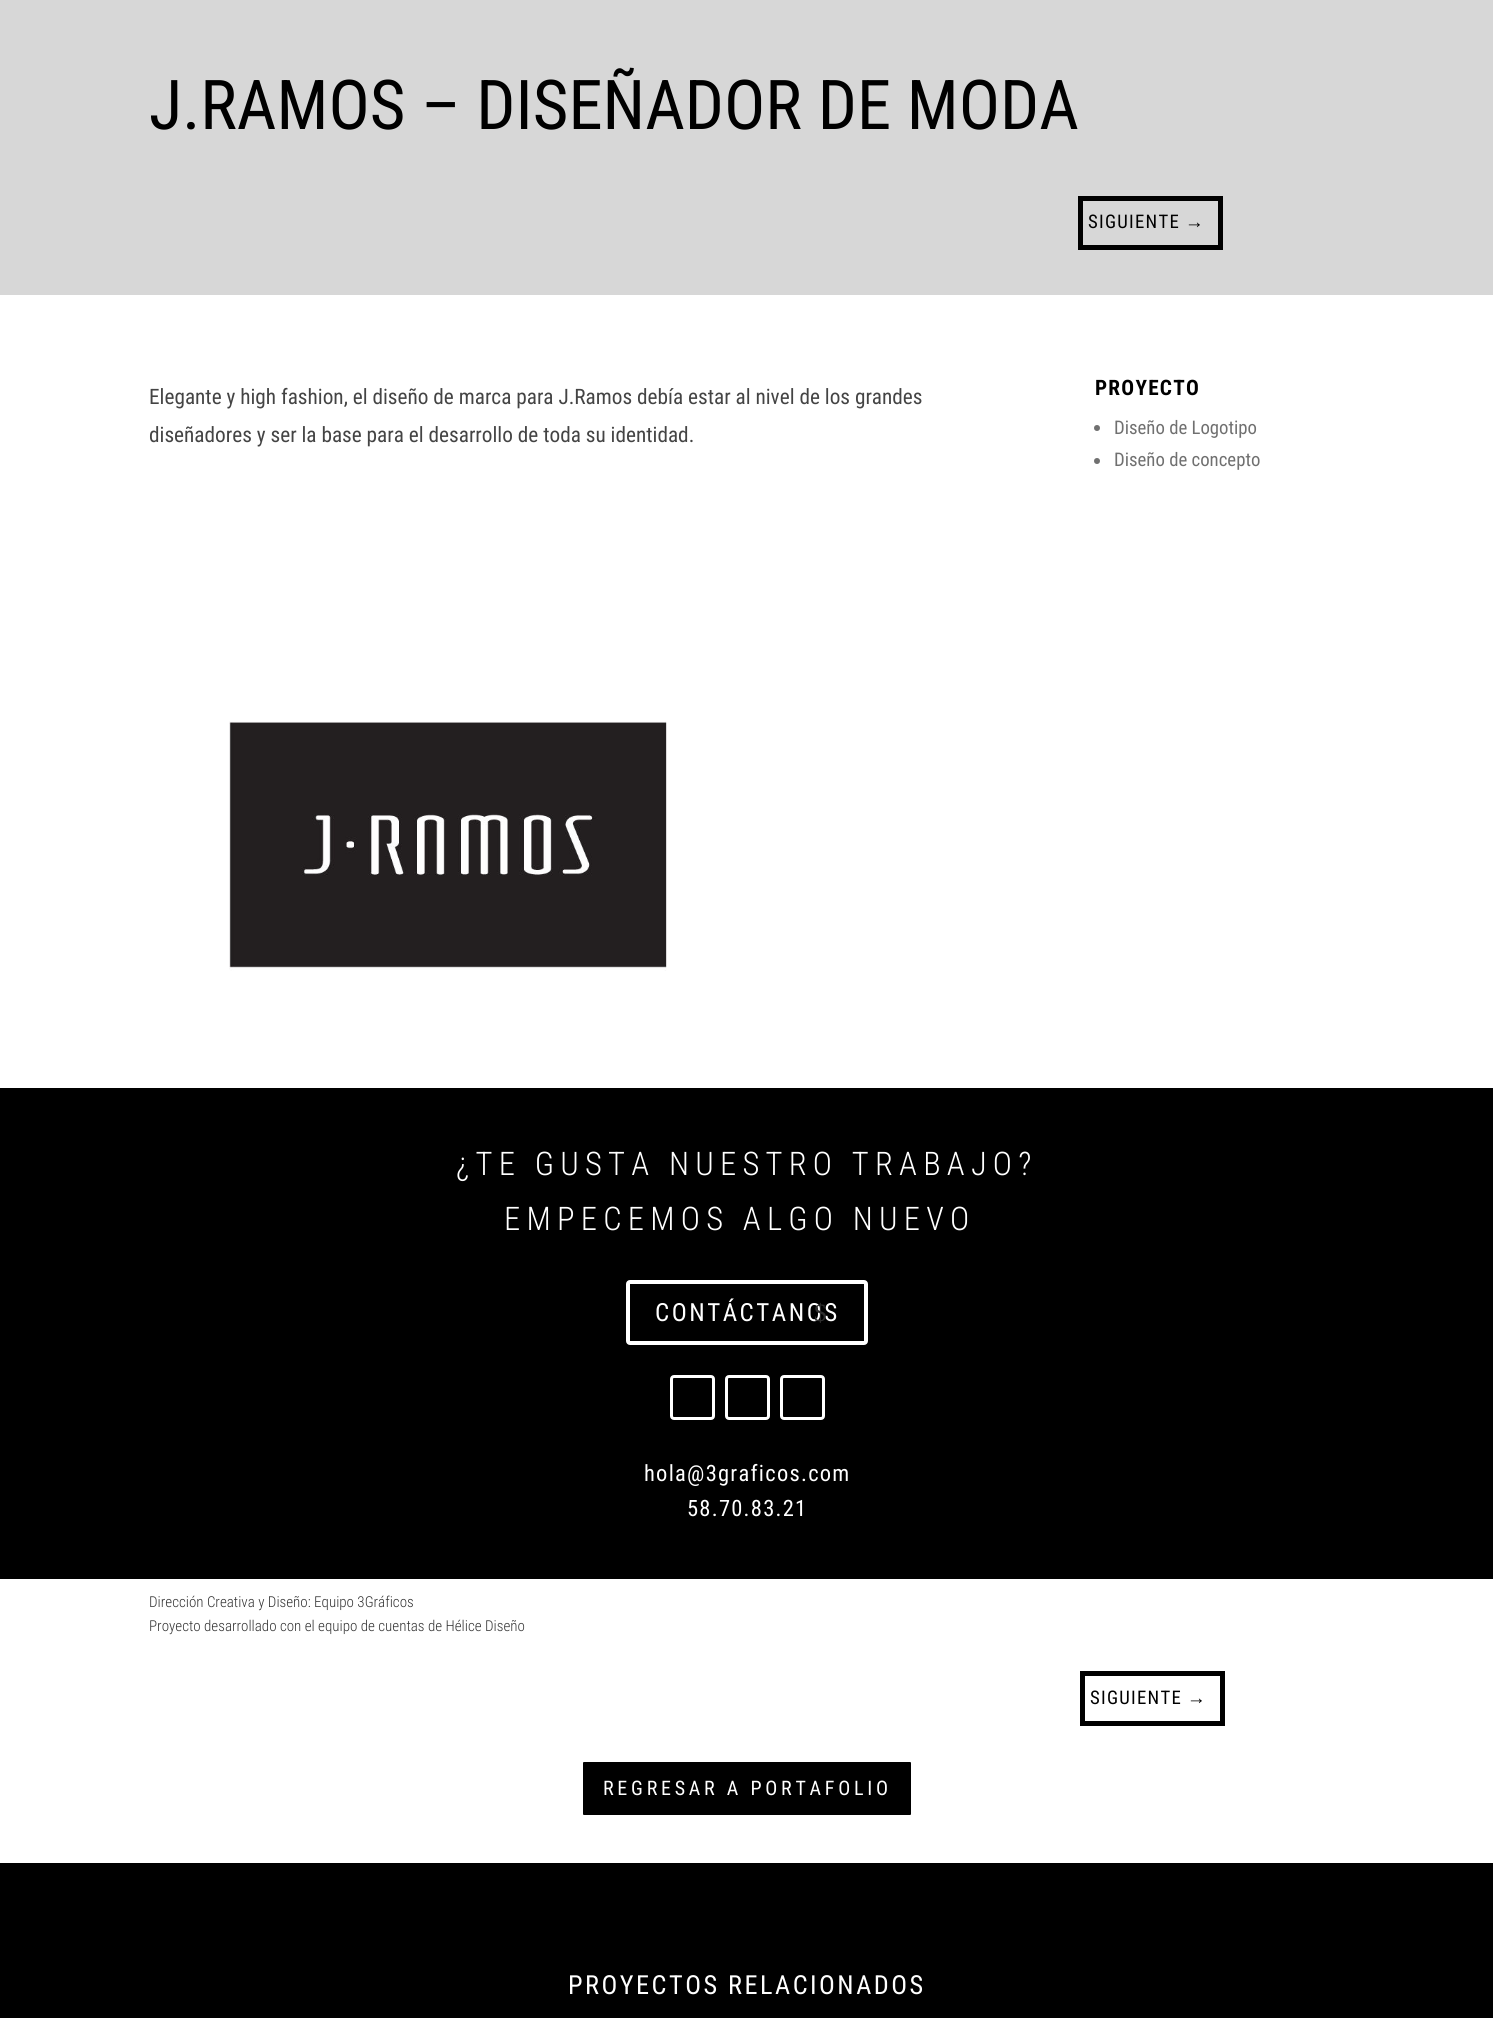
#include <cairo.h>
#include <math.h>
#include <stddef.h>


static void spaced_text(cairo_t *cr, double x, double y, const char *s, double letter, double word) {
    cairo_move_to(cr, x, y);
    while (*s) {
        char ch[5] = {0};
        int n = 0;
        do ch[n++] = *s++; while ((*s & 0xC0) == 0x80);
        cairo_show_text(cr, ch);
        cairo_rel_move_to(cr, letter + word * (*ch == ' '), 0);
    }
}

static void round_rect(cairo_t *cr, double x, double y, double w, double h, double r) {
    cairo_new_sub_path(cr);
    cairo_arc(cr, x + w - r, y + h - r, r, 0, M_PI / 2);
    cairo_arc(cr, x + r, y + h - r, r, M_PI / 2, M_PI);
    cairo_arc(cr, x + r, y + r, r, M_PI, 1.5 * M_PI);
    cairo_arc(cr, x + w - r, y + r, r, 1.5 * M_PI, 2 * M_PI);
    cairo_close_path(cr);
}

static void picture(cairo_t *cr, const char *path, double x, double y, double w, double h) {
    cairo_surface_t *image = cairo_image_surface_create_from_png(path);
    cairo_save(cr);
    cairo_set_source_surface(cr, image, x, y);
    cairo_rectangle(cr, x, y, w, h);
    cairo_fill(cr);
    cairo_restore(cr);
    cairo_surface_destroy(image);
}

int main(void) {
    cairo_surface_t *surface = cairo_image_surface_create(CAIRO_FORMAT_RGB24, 1493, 2018);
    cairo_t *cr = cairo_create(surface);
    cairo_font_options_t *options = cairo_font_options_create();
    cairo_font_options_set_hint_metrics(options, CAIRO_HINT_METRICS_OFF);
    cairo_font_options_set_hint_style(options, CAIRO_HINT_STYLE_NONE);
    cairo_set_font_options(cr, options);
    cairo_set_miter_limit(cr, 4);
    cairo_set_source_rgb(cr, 1, 1, 1);
    cairo_paint(cr);
    cairo_set_source_rgb(cr, 0.843, 0.843, 0.843);
    cairo_rectangle(cr, 0, 0, 1493, 295);
    cairo_fill(cr);
    cairo_select_font_face(cr, "Roboto Condensed", CAIRO_FONT_SLANT_NORMAL, CAIRO_FONT_WEIGHT_NORMAL);
    cairo_set_font_size(cr, 68.75);
    cairo_set_source_rgb(cr, 0, 0, 0);
    cairo_move_to(cr, 149, 129);
    cairo_show_text(cr, "J.RAMOS – DISEÑADOR DE MODA");
    cairo_rectangle(cr, 1080.5, 198.5, 140, 49);
    cairo_set_line_width(cr, 5);
    cairo_stroke(cr);
    cairo_set_font_size(cr, 18.75);
    spaced_text(cr, 1088, 228, "SIGUIENTE", 1.25, 0);
    cairo_select_font_face(cr, "Liberation Sans", CAIRO_FONT_SLANT_NORMAL, CAIRO_FONT_WEIGHT_NORMAL);
    spaced_text(cr, 1185, 228, "→", 1.25, 0);
    cairo_select_font_face(cr, "Roboto Condensed", CAIRO_FONT_SLANT_NORMAL, CAIRO_FONT_WEIGHT_NORMAL);
    cairo_set_font_size(cr, 21.25);
    cairo_set_source_rgb(cr, 0.267, 0.267, 0.267);
    cairo_move_to(cr, 149, 404);
    cairo_show_text(cr, "Elegante y high fashion, el diseño de marca para J.Ramos debía estar al nivel de los grandes");
    cairo_move_to(cr, 149, 442);
    cairo_show_text(cr, "diseñadores y ser la base para el desarrollo de toda su identidad.");
    cairo_select_font_face(cr, "Roboto Condensed", CAIRO_FONT_SLANT_NORMAL, CAIRO_FONT_WEIGHT_BOLD);
    cairo_set_source_rgb(cr, 0, 0, 0);
    spaced_text(cr, 1095, 395, "PROYECTO", 1.25, 0);
    cairo_set_source_rgb(cr, 0.439, 0.439, 0.439);
    cairo_new_path(cr);
    cairo_arc(cr, 1097, 428, 3, 0, 2 * M_PI);
    cairo_fill(cr);
    cairo_select_font_face(cr, "Roboto Condensed", CAIRO_FONT_SLANT_NORMAL, CAIRO_FONT_WEIGHT_NORMAL);
    cairo_set_font_size(cr, 18.75);
    cairo_move_to(cr, 1114, 434);
    cairo_show_text(cr, "Diseño de Logotipo");
    cairo_new_path(cr);
    cairo_arc(cr, 1097, 461, 3, 0, 2 * M_PI);
    cairo_fill(cr);
    cairo_move_to(cr, 1114, 466);
    cairo_show_text(cr, "Diseño de concepto");
    picture(cr, "img1.png", 229, 721, 438, 250);
    cairo_set_source_rgb(cr, 0, 0, 0);
    cairo_rectangle(cr, 0, 1088, 1493, 491);
    cairo_fill(cr);
    cairo_select_font_face(cr, "Roboto Condensed Light", CAIRO_FONT_SLANT_NORMAL, CAIRO_FONT_WEIGHT_NORMAL);
    cairo_set_font_size(cr, 32.5);
    cairo_set_source_rgb(cr, 1, 1, 1);
    spaced_text(cr, 456, 1175, "¿TE GUSTA NUESTRO TRABAJO?", 6.25, 0);
    spaced_text(cr, 504, 1230, "EMPECEMOS ALGO NUEVO", 6.25, 0);
    round_rect(cr, 628, 1282, 238, 61, 2);
    cairo_set_line_width(cr, 4);
    cairo_stroke(cr);
    cairo_select_font_face(cr, "Roboto Condensed", CAIRO_FONT_SLANT_NORMAL, CAIRO_FONT_WEIGHT_NORMAL);
    cairo_set_font_size(cr, 25);
    spaced_text(cr, 655, 1321, "CONTÁCTANOS", 2.5, 0);
    cairo_select_font_face(cr, "Liberation Serif", CAIRO_FONT_SLANT_NORMAL, CAIRO_FONT_WEIGHT_NORMAL);
    cairo_set_source_rgb(cr, 0.18, 0.18, 0.18);
    spaced_text(cr, 814, 1321, "$", 2.5, 0);
    round_rect(cr, 671.5, 1376.5, 42, 42, 2.5);
    cairo_set_source_rgb(cr, 1, 1, 1);
    cairo_set_line_width(cr, 3);
    cairo_stroke(cr);
    round_rect(cr, 726.5, 1376.5, 42, 42, 2.5);
    cairo_stroke(cr);
    round_rect(cr, 781.5, 1376.5, 42, 42, 2.5);
    cairo_stroke(cr);
    cairo_select_font_face(cr, "Roboto Condensed", CAIRO_FONT_SLANT_NORMAL, CAIRO_FONT_WEIGHT_NORMAL);
    cairo_set_font_size(cr, 22.5);
    spaced_text(cr, 644, 1481, "hola@3graficos.com", 1.25, 0);
    spaced_text(cr, 687, 1516, "58.70.83.21", 1.25, 0);
    cairo_select_font_face(cr, "Roboto Condensed Light", CAIRO_FONT_SLANT_NORMAL, CAIRO_FONT_WEIGHT_NORMAL);
    cairo_set_font_size(cr, 15);
    cairo_set_source_rgb(cr, 0.208, 0.208, 0.208);
    cairo_move_to(cr, 149, 1607);
    cairo_show_text(cr, "Dirección Creativa y Diseño: Equipo 3Gráficos");
    cairo_move_to(cr, 149, 1631);
    cairo_show_text(cr, "Proyecto desarrollado con el equipo de cuentas de Hélice Diseño");
    cairo_rectangle(cr, 1082.5, 1673.5, 140, 50);
    cairo_set_source_rgb(cr, 0, 0, 0);
    cairo_set_line_width(cr, 5);
    cairo_stroke(cr);
    cairo_select_font_face(cr, "Roboto Condensed", CAIRO_FONT_SLANT_NORMAL, CAIRO_FONT_WEIGHT_NORMAL);
    cairo_set_font_size(cr, 18.75);
    spaced_text(cr, 1090, 1704, "SIGUIENTE", 1.25, 0);
    cairo_select_font_face(cr, "Liberation Sans", CAIRO_FONT_SLANT_NORMAL, CAIRO_FONT_WEIGHT_NORMAL);
    spaced_text(cr, 1187, 1704, "→", 1.25, 0);
    round_rect(cr, 581.5, 1760.5, 331, 56, 2.5);
    cairo_fill_preserve(cr);
    cairo_set_source_rgb(cr, 1, 1, 1);
    cairo_set_line_width(cr, 3);
    cairo_stroke(cr);
    cairo_select_font_face(cr, "Roboto Condensed", CAIRO_FONT_SLANT_NORMAL, CAIRO_FONT_WEIGHT_NORMAL);
    cairo_set_font_size(cr, 20);
    spaced_text(cr, 603, 1795, "REGRESAR A PORTAFOLIO", 3.75, 0);
    cairo_set_source_rgb(cr, 0, 0, 0);
    cairo_rectangle(cr, 0, 1863, 1493, 155);
    cairo_fill(cr);
    cairo_set_font_size(cr, 26.25);
    cairo_set_source_rgb(cr, 1, 1, 1);
    spaced_text(cr, 568, 1994, "PROYECTOS RELACIONADOS", 2.5, 0);
    cairo_surface_write_to_png(surface, "page.png");
    cairo_font_options_destroy(options);
    cairo_destroy(cr);
    cairo_surface_destroy(surface);
    return 0;
}
